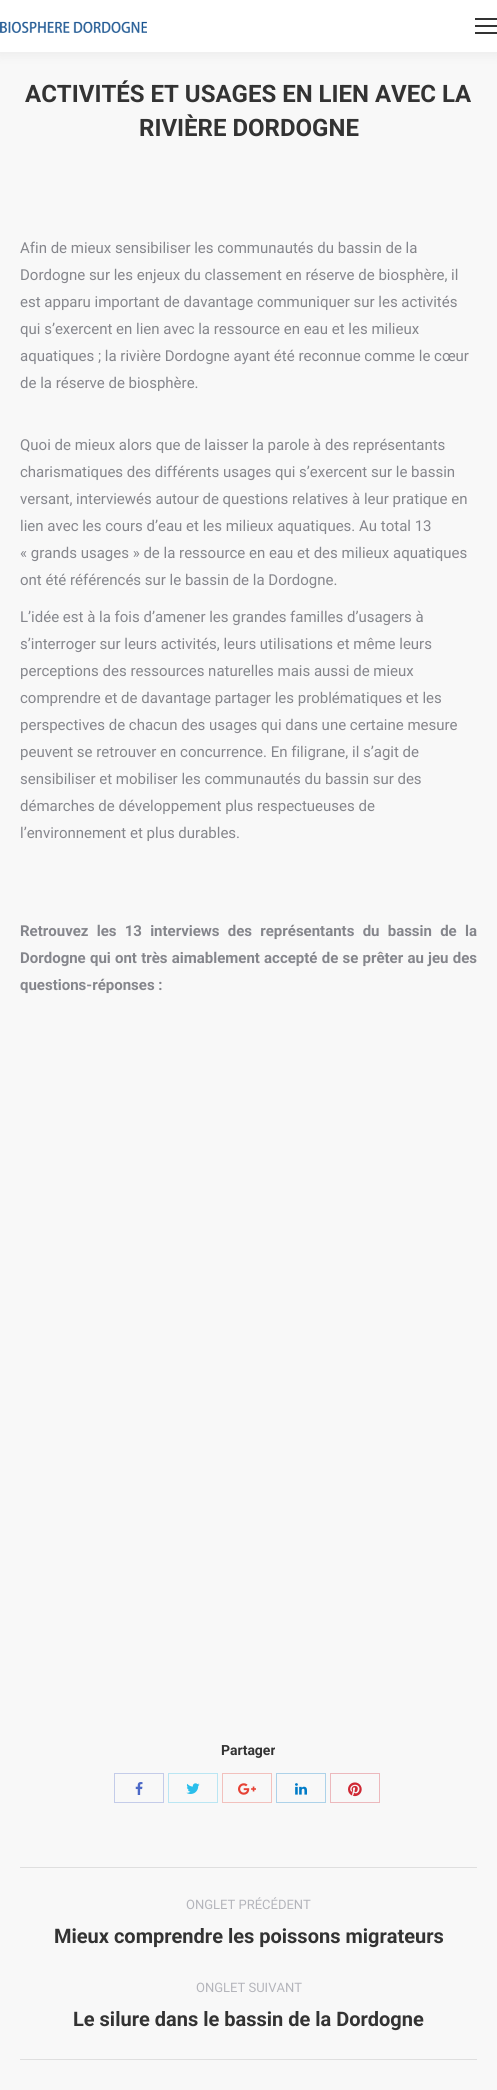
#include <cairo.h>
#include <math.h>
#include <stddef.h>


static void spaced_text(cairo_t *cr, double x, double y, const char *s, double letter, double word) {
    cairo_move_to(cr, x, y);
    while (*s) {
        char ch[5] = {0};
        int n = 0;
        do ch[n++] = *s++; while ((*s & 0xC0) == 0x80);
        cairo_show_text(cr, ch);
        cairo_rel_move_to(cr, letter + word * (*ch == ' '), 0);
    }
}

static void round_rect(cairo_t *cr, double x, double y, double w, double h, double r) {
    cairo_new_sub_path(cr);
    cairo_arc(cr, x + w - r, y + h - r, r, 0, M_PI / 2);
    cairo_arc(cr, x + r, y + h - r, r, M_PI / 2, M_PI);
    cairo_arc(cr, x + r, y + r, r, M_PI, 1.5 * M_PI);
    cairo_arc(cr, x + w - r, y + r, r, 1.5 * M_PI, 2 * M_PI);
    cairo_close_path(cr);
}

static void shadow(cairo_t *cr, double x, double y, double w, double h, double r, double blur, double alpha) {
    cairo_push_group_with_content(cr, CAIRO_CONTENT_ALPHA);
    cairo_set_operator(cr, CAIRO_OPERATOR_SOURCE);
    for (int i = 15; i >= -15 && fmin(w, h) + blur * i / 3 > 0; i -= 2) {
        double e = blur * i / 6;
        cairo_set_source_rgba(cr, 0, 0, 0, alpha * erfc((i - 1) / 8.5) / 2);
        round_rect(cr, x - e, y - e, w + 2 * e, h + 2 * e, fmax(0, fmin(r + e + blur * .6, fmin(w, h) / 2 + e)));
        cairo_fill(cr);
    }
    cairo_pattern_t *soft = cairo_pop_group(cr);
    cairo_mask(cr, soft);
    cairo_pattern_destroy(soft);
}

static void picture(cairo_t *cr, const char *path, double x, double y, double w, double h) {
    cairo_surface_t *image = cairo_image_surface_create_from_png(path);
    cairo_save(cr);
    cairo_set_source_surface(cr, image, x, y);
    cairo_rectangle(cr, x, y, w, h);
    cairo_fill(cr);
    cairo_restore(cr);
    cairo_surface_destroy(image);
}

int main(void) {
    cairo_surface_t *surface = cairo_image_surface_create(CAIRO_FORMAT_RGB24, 497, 2090);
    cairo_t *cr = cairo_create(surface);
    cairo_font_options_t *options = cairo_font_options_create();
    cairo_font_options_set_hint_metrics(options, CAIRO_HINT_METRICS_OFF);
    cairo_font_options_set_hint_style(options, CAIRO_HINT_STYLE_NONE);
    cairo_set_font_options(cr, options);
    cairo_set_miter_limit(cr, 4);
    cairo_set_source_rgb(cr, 0.969, 0.969, 0.969);
    cairo_paint(cr);
    cairo_set_source_rgb(cr, 0, 0, 0);
    shadow(cr, -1, -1, 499, 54, 0, 7.5, 0.07);
    cairo_set_source_rgb(cr, 1, 1, 1);
    cairo_rectangle(cr, 0, 0, 497, 52);
    cairo_fill(cr);
    picture(cr, "img1.png", 0, 21, 147, 12);
    cairo_set_source_rgb(cr, 0.2, 0.2, 0.2);
    cairo_rectangle(cr, 475, 25, 22, 2);
    cairo_fill(cr);
    cairo_rectangle(cr, 475, 18, 22, 2);
    cairo_fill(cr);
    cairo_rectangle(cr, 475, 32, 22, 2);
    cairo_fill(cr);
    cairo_select_font_face(cr, "Roboto", CAIRO_FONT_SLANT_NORMAL, CAIRO_FONT_WEIGHT_BOLD);
    cairo_set_font_size(cr, 24);
    cairo_move_to(cr, 25, 102);
    cairo_show_text(cr, "ACTIVITÉS ET USAGES EN LIEN AVEC LA");
    cairo_move_to(cr, 139, 136);
    cairo_show_text(cr, "RIVIÈRE DORDOGNE");
    cairo_select_font_face(cr, "Roboto", CAIRO_FONT_SLANT_NORMAL, CAIRO_FONT_WEIGHT_NORMAL);
    cairo_set_font_size(cr, 15);
    cairo_set_source_rgb(cr, 0.522, 0.525, 0.549);
    cairo_move_to(cr, 20, 253);
    cairo_show_text(cr, "Afin de mieux sensibiliser les communautés du bassin de la");
    cairo_move_to(cr, 20, 280);
    cairo_show_text(cr, "Dordogne sur les enjeux du classement en réserve de biosphère, il");
    cairo_move_to(cr, 20, 307);
    cairo_show_text(cr, "est apparu important de davantage communiquer sur les activités");
    cairo_move_to(cr, 20, 334);
    cairo_show_text(cr, "qui s’exercent en lien avec la ressource en eau et les milieux");
    cairo_move_to(cr, 20, 361);
    cairo_show_text(cr, "aquatiques ; la rivière Dordogne ayant été reconnue comme le cœur");
    cairo_move_to(cr, 20, 388);
    cairo_show_text(cr, "de la réserve de biosphère.");
    cairo_move_to(cr, 20, 450);
    cairo_show_text(cr, "Quoi de mieux alors que de laisser la parole à des représentants");
    cairo_move_to(cr, 20, 477);
    cairo_show_text(cr, "charismatiques des différents usages qui s’exercent sur le bassin");
    cairo_move_to(cr, 20, 504);
    cairo_show_text(cr, "versant, interviewés autour de questions relatives à leur pratique en");
    cairo_move_to(cr, 20, 531);
    cairo_show_text(cr, "lien avec les cours d’eau et les milieux aquatiques. Au total 13");
    cairo_move_to(cr, 20, 558);
    cairo_show_text(cr, "« grands usages » de la ressource en eau et des milieux aquatiques");
    cairo_move_to(cr, 20, 585);
    cairo_show_text(cr, "ont été référencés sur le bassin de la Dordogne.");
    cairo_move_to(cr, 20, 622);
    cairo_show_text(cr, "L’idée est à la fois d’amener les grandes familles d’usagers à");
    cairo_move_to(cr, 20, 649);
    cairo_show_text(cr, "s’interroger sur leurs activités, leurs utilisations et même leurs");
    cairo_move_to(cr, 20, 676);
    cairo_show_text(cr, "perceptions des ressources naturelles mais aussi de mieux");
    cairo_move_to(cr, 20, 703);
    cairo_show_text(cr, "comprendre et de davantage partager les problématiques et les");
    cairo_move_to(cr, 20, 730);
    cairo_show_text(cr, "perspectives de chacun des usages qui dans une certaine mesure");
    cairo_move_to(cr, 20, 757);
    cairo_show_text(cr, "peuvent se retrouver en concurrence. En filigrane, il s’agit de");
    cairo_move_to(cr, 20, 784);
    cairo_show_text(cr, "sensibiliser et mobiliser les communautés du bassin sur des");
    cairo_move_to(cr, 20, 811);
    cairo_show_text(cr, "démarches de développement plus respectueuses de");
    cairo_move_to(cr, 20, 838);
    cairo_show_text(cr, "l’environnement et plus durables.");
    cairo_select_font_face(cr, "Roboto", CAIRO_FONT_SLANT_NORMAL, CAIRO_FONT_WEIGHT_BOLD);
    spaced_text(cr, 20, 936, "Retrouvez les 13 interviews des représentants du bassin de la", 0, 4.5);
    spaced_text(cr, 20, 963, "Dordogne qui ont très aimablement accepté de se prêter au jeu des", 0, 0.5);
    cairo_move_to(cr, 20, 990);
    cairo_show_text(cr, "questions-réponses :");
    cairo_set_font_size(cr, 14);
    cairo_set_source_rgb(cr, 0.2, 0.2, 0.2);
    cairo_move_to(cr, 221, 1755);
    cairo_show_text(cr, "Partager");
    cairo_rectangle(cr, 114.5, 1773.5, 49, 29);
    cairo_set_source_rgb(cr, 0.769, 0.8, 0.914);
    cairo_set_line_width(cr, 1);
    cairo_stroke(cr);
    picture(cr, "img2.png", 135, 1782, 8, 13);
    cairo_rectangle(cr, 168.5, 1773.5, 49, 29);
    cairo_set_source_rgb(cr, 0.729, 0.902, 0.953);
    cairo_stroke(cr);
    picture(cr, "img3.png", 186, 1783, 14, 11);
    cairo_rectangle(cr, 222.5, 1773.5, 49, 29);
    cairo_set_source_rgb(cr, 0.949, 0.757, 0.741);
    cairo_stroke(cr);
    picture(cr, "img4.png", 238, 1783, 18, 12);
    cairo_rectangle(cr, 276.5, 1773.5, 49, 29);
    cairo_set_source_rgb(cr, 0.678, 0.824, 0.914);
    cairo_stroke(cr);
    picture(cr, "img5.png", 295, 1783, 12, 12);
    cairo_rectangle(cr, 330.5, 1773.5, 49, 29);
    cairo_set_source_rgb(cr, 0.922, 0.725, 0.741);
    cairo_stroke(cr);
    picture(cr, "img6.png", 348, 1782, 14, 15);
    cairo_set_source_rgb(cr, 0.875, 0.875, 0.875);
    cairo_rectangle(cr, 20, 1867, 457, 1);
    cairo_fill(cr);
    cairo_rectangle(cr, 20, 2059, 457, 1);
    cairo_fill(cr);
    cairo_select_font_face(cr, "Roboto", CAIRO_FONT_SLANT_NORMAL, CAIRO_FONT_WEIGHT_NORMAL);
    cairo_set_font_size(cr, 13);
    cairo_set_source_rgb(cr, 0.706, 0.71, 0.733);
    cairo_move_to(cr, 186, 1909);
    cairo_show_text(cr, "ONGLET PRÉCÉDENT");
    cairo_select_font_face(cr, "Roboto", CAIRO_FONT_SLANT_NORMAL, CAIRO_FONT_WEIGHT_BOLD);
    cairo_set_font_size(cr, 20);
    cairo_set_source_rgb(cr, 0.2, 0.2, 0.2);
    cairo_move_to(cr, 54, 1943);
    cairo_show_text(cr, "Mieux comprendre les poissons migrateurs");
    cairo_select_font_face(cr, "Roboto", CAIRO_FONT_SLANT_NORMAL, CAIRO_FONT_WEIGHT_NORMAL);
    cairo_set_font_size(cr, 13);
    cairo_set_source_rgb(cr, 0.706, 0.71, 0.733);
    cairo_move_to(cr, 196, 1992);
    cairo_show_text(cr, "ONGLET SUIVANT");
    cairo_select_font_face(cr, "Roboto", CAIRO_FONT_SLANT_NORMAL, CAIRO_FONT_WEIGHT_BOLD);
    cairo_set_font_size(cr, 20);
    cairo_set_source_rgb(cr, 0.2, 0.2, 0.2);
    cairo_move_to(cr, 73, 2026);
    cairo_show_text(cr, "Le silure dans le bassin de la Dordogne");
    cairo_surface_write_to_png(surface, "page.png");
    cairo_font_options_destroy(options);
    cairo_destroy(cr);
    cairo_surface_destroy(surface);
    return 0;
}
